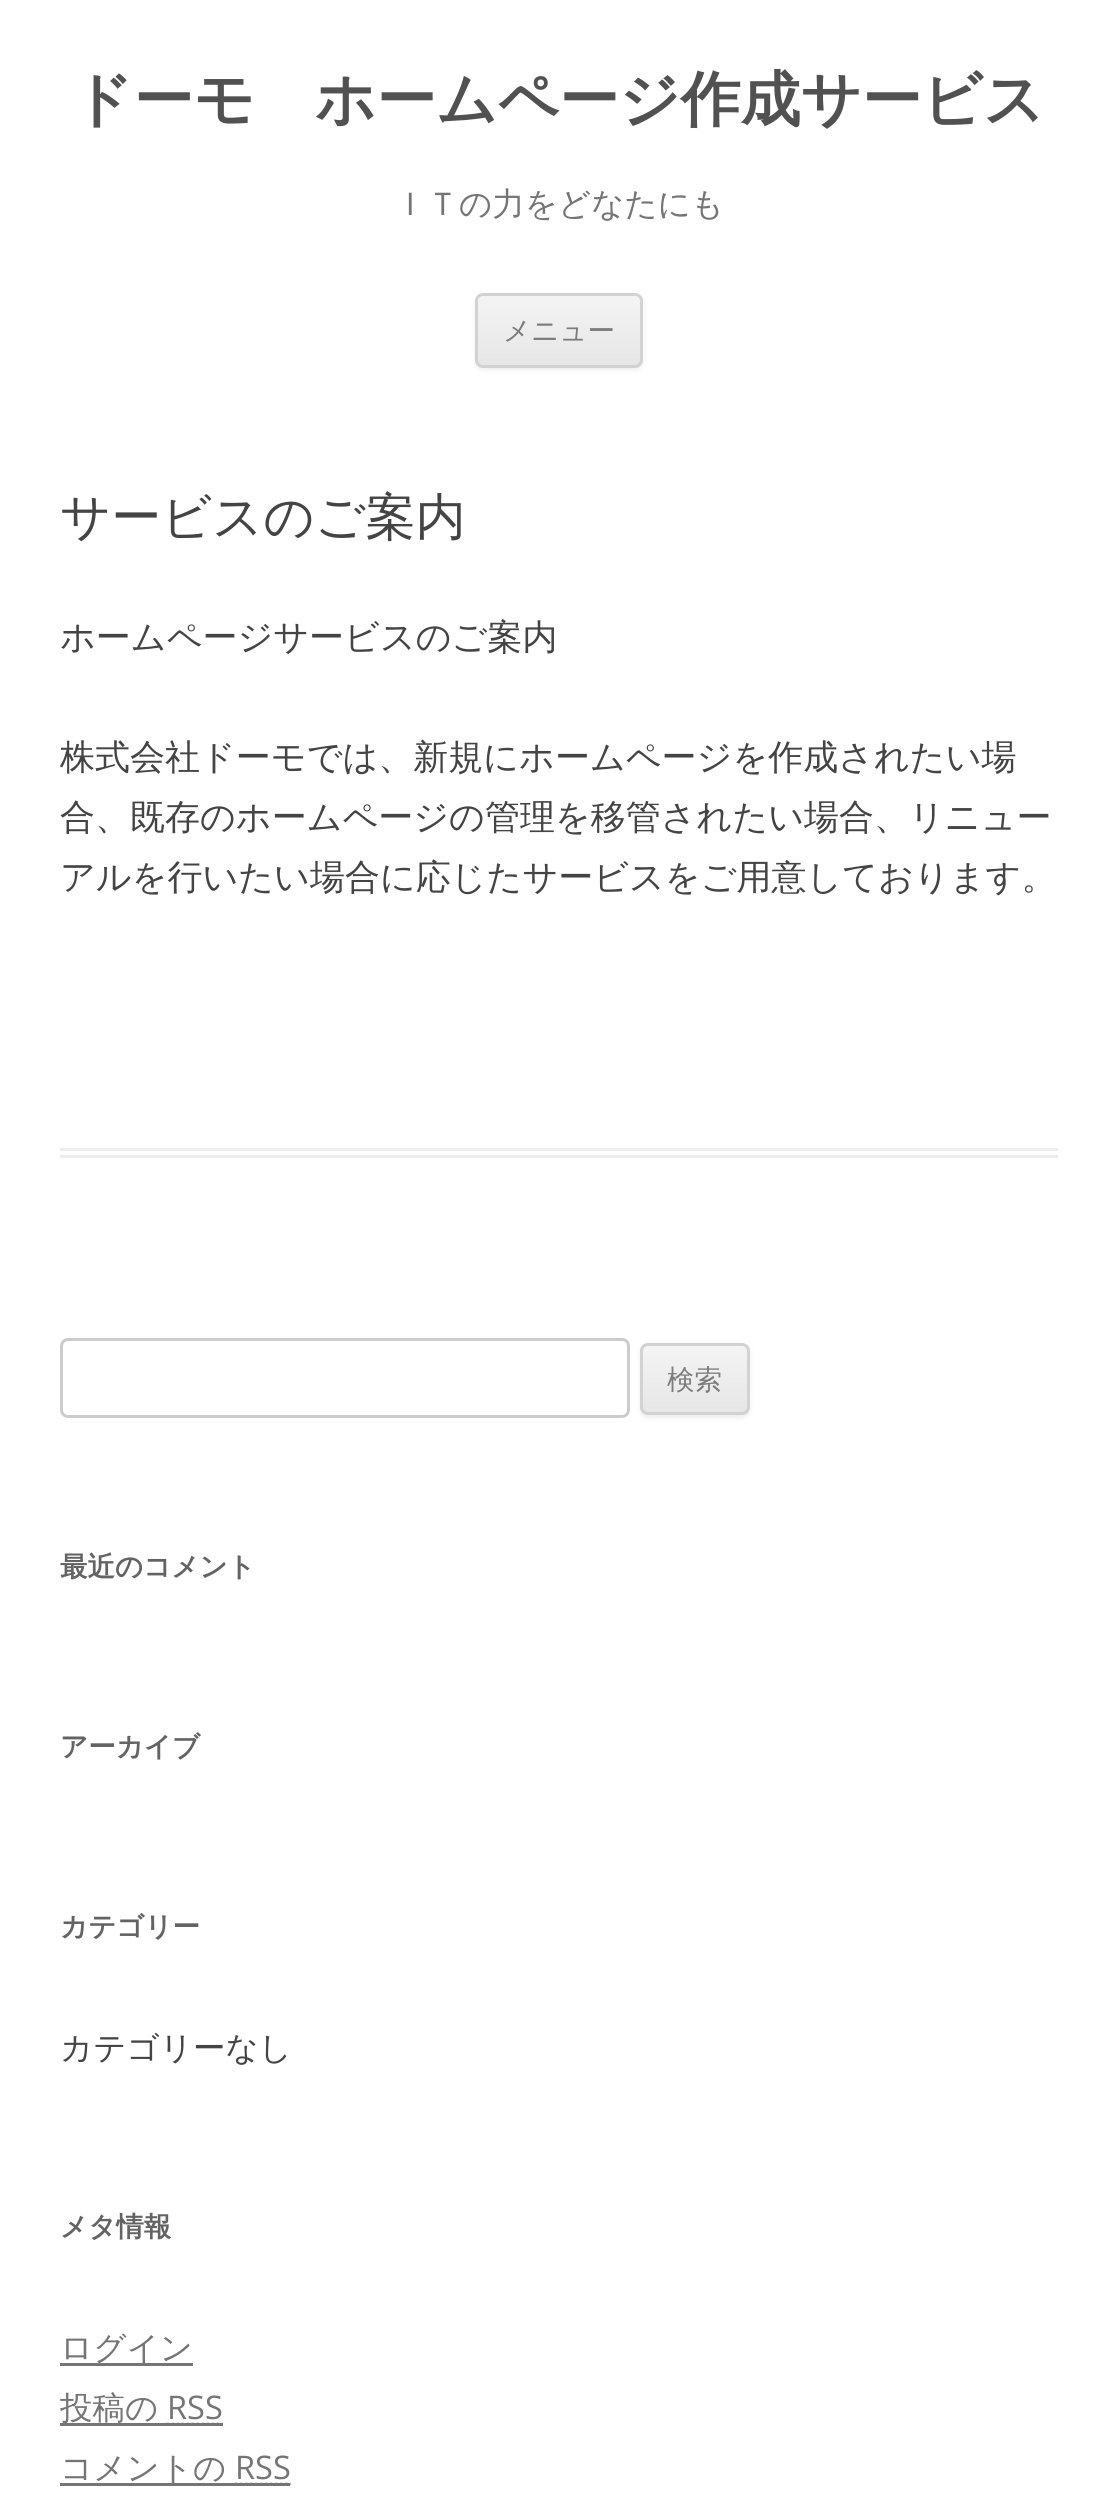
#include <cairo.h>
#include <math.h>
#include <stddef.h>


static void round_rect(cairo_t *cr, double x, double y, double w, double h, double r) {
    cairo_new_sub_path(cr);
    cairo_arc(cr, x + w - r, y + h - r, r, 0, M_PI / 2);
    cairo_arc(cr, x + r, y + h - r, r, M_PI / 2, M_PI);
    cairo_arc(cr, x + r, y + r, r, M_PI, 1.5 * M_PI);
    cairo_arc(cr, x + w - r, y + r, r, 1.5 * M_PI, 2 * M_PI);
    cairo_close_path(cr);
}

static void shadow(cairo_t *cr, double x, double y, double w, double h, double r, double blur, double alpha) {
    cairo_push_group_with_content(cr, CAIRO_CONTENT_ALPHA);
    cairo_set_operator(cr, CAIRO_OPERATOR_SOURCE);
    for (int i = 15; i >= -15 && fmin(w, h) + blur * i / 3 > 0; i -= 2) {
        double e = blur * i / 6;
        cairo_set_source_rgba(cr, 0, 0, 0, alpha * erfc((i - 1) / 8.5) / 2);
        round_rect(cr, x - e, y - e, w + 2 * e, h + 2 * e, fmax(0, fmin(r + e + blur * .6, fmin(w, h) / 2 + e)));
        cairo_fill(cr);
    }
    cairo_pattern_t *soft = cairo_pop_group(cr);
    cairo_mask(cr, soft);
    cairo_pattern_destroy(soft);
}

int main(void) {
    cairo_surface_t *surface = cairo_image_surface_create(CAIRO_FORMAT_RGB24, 1116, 2503);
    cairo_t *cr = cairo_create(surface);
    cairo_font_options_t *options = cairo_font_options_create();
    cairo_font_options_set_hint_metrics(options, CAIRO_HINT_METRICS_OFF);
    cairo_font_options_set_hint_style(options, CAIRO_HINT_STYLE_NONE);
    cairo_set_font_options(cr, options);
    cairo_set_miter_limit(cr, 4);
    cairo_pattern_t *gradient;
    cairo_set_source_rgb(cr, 1, 1, 1);
    cairo_paint(cr);
    cairo_select_font_face(cr, "WenQuanYi Zen Hei", CAIRO_FONT_SLANT_NORMAL, CAIRO_FONT_WEIGHT_BOLD);
    cairo_set_font_size(cr, 60);
    cairo_set_source_rgb(cr, 0.318, 0.318, 0.318);
    cairo_move_to(cr, 72, 120);
    cairo_show_text(cr, "ドーモ　ホームページ作成サービス");
    cairo_select_font_face(cr, "WenQuanYi Zen Hei Medium", CAIRO_FONT_SLANT_NORMAL, CAIRO_FONT_WEIGHT_NORMAL);
    cairo_set_font_size(cr, 32.5);
    cairo_set_source_rgb(cr, 0.459, 0.459, 0.459);
    cairo_move_to(cr, 394, 215);
    cairo_show_text(cr, "ＩＴの力をどなたにも");
    cairo_set_source_rgb(cr, 0.251, 0.251, 0.251);
    shadow(cr, 475, 295, 168, 75, 8, 2.5, 0.1);
    cairo_save(cr);
    round_rect(cr, 475, 293, 168, 75, 8);
    cairo_clip(cr);
    gradient = cairo_pattern_create_linear(559, 295, 559, 365);
    cairo_pattern_add_color_stop_rgba(gradient, 0, 0.957, 0.957, 0.957, 1);
    cairo_pattern_add_color_stop_rgba(gradient, 1, 0.902, 0.902, 0.902, 1);
    cairo_set_source(cr, gradient);
    cairo_pattern_destroy(gradient);
    cairo_rectangle(cr, 475, 295, 168, 70);
    cairo_fill(cr);
    cairo_restore(cr);
    round_rect(cr, 476.5, 294.5, 165, 72, 6.5);
    cairo_set_source_rgb(cr, 0.824, 0.824, 0.824);
    cairo_set_line_width(cr, 3);
    cairo_stroke(cr);
    cairo_set_font_size(cr, 27.5);
    cairo_set_source_rgb(cr, 0.486, 0.486, 0.486);
    cairo_move_to(cr, 503, 340);
    cairo_show_text(cr, "メニュー");
    cairo_set_source_rgb(cr, 0.929, 0.929, 0.929);
    cairo_rectangle(cr, 60, 1148, 998, 3);
    cairo_fill(cr);
    cairo_rectangle(cr, 60, 1155, 998, 3);
    cairo_fill(cr);
    cairo_set_font_size(cr, 50);
    cairo_set_source_rgb(cr, 0.267, 0.267, 0.267);
    cairo_move_to(cr, 60, 534);
    cairo_show_text(cr, "サービスのご案内");
    cairo_set_font_size(cr, 35);
    cairo_move_to(cr, 60, 649);
    cairo_show_text(cr, "ホームページサービスのご案内");
    cairo_move_to(cr, 60, 769);
    cairo_show_text(cr, "株式会社ドーモでは、新規にホームページを作成されたい場");
    cairo_move_to(cr, 60, 829);
    cairo_show_text(cr, "合、既存のホームページの管理を移管されたい場合、リニュー");
    cairo_move_to(cr, 60, 889);
    cairo_show_text(cr, "アルを行いたい場合に応じたサービスをご用意しております。");
    round_rect(cr, 61.5, 1339.5, 567, 77, 6.5);
    cairo_set_source_rgb(cr, 0.8, 0.8, 0.8);
    cairo_stroke(cr);
    cairo_set_source_rgb(cr, 0.251, 0.251, 0.251);
    shadow(cr, 640, 1345, 110, 73, 8, 2.5, 0.1);
    cairo_save(cr);
    round_rect(cr, 640, 1343, 110, 72, 8);
    cairo_clip(cr);
    gradient = cairo_pattern_create_linear(695, 1345, 695, 1413);
    cairo_pattern_add_color_stop_rgba(gradient, 0, 0.957, 0.957, 0.957, 1);
    cairo_pattern_add_color_stop_rgba(gradient, 1, 0.902, 0.902, 0.902, 1);
    cairo_set_source(cr, gradient);
    cairo_pattern_destroy(gradient);
    cairo_rectangle(cr, 640, 1345, 110, 68);
    cairo_fill(cr);
    cairo_restore(cr);
    round_rect(cr, 641.5, 1344.5, 107, 69, 6.5);
    cairo_set_source_rgb(cr, 0.824, 0.824, 0.824);
    cairo_stroke(cr);
    cairo_set_font_size(cr, 27.5);
    cairo_set_source_rgb(cr, 0.486, 0.486, 0.486);
    cairo_move_to(cr, 667, 1389);
    cairo_show_text(cr, "検索");
    cairo_select_font_face(cr, "WenQuanYi Zen Hei", CAIRO_FONT_SLANT_NORMAL, CAIRO_FONT_WEIGHT_BOLD);
    cairo_set_source_rgb(cr, 0.388, 0.388, 0.388);
    cairo_move_to(cr, 60, 1576);
    cairo_show_text(cr, "最近のコメント");
    cairo_move_to(cr, 60, 1756);
    cairo_show_text(cr, "アーカイブ");
    cairo_move_to(cr, 60, 1936);
    cairo_show_text(cr, "カテゴリー");
    cairo_select_font_face(cr, "WenQuanYi Zen Hei Medium", CAIRO_FONT_SLANT_NORMAL, CAIRO_FONT_WEIGHT_NORMAL);
    cairo_set_font_size(cr, 32.5);
    cairo_set_source_rgb(cr, 0.267, 0.267, 0.267);
    cairo_move_to(cr, 60, 2059);
    cairo_show_text(cr, "カテゴリーなし");
    cairo_select_font_face(cr, "WenQuanYi Zen Hei", CAIRO_FONT_SLANT_NORMAL, CAIRO_FONT_WEIGHT_BOLD);
    cairo_set_font_size(cr, 27.5);
    cairo_set_source_rgb(cr, 0.388, 0.388, 0.388);
    cairo_move_to(cr, 60, 2236);
    cairo_show_text(cr, "メタ情報");
    cairo_set_source_rgb(cr, 0.459, 0.459, 0.459);
    cairo_rectangle(cr, 60, 2363, 133, 3);
    cairo_fill(cr);
    cairo_select_font_face(cr, "WenQuanYi Zen Hei Medium", CAIRO_FONT_SLANT_NORMAL, CAIRO_FONT_WEIGHT_NORMAL);
    cairo_set_font_size(cr, 32.5);
    cairo_move_to(cr, 60, 2359);
    cairo_show_text(cr, "ログイン");
    cairo_rectangle(cr, 60, 2423, 108, 3);
    cairo_fill(cr);
    cairo_move_to(cr, 60, 2419);
    cairo_show_text(cr, "投稿の");
    cairo_select_font_face(cr, "Open Sans", CAIRO_FONT_SLANT_NORMAL, CAIRO_FONT_WEIGHT_NORMAL);
    cairo_move_to(cr, 167, 2419);
    cairo_show_text(cr, "RSS");
    cairo_new_path(cr);
    cairo_move_to(cr, 166.5, 2424);
    cairo_line_to(cr, 222.5, 2424);
    cairo_set_line_width(cr, 2.5);
    cairo_set_dash(cr, (double[]){2.5, 2.5}, 2, 0);
    cairo_stroke(cr);
    cairo_rectangle(cr, 168, 2423, 55, 3);
    cairo_fill(cr);
    cairo_select_font_face(cr, "WenQuanYi Zen Hei Medium", CAIRO_FONT_SLANT_NORMAL, CAIRO_FONT_WEIGHT_NORMAL);
    cairo_move_to(cr, 60, 2479);
    cairo_show_text(cr, "コメントの");
    cairo_rectangle(cr, 60, 2483, 175, 3);
    cairo_fill(cr);
    cairo_select_font_face(cr, "Open Sans", CAIRO_FONT_SLANT_NORMAL, CAIRO_FONT_WEIGHT_NORMAL);
    cairo_move_to(cr, 235, 2479);
    cairo_show_text(cr, "RSS");
    cairo_new_path(cr);
    cairo_move_to(cr, 235, 2484);
    cairo_line_to(cr, 290.5, 2484);
    cairo_stroke(cr);
    cairo_rectangle(cr, 235, 2483, 55, 3);
    cairo_fill(cr);
    cairo_surface_write_to_png(surface, "page.png");
    cairo_font_options_destroy(options);
    cairo_destroy(cr);
    cairo_surface_destroy(surface);
    return 0;
}
